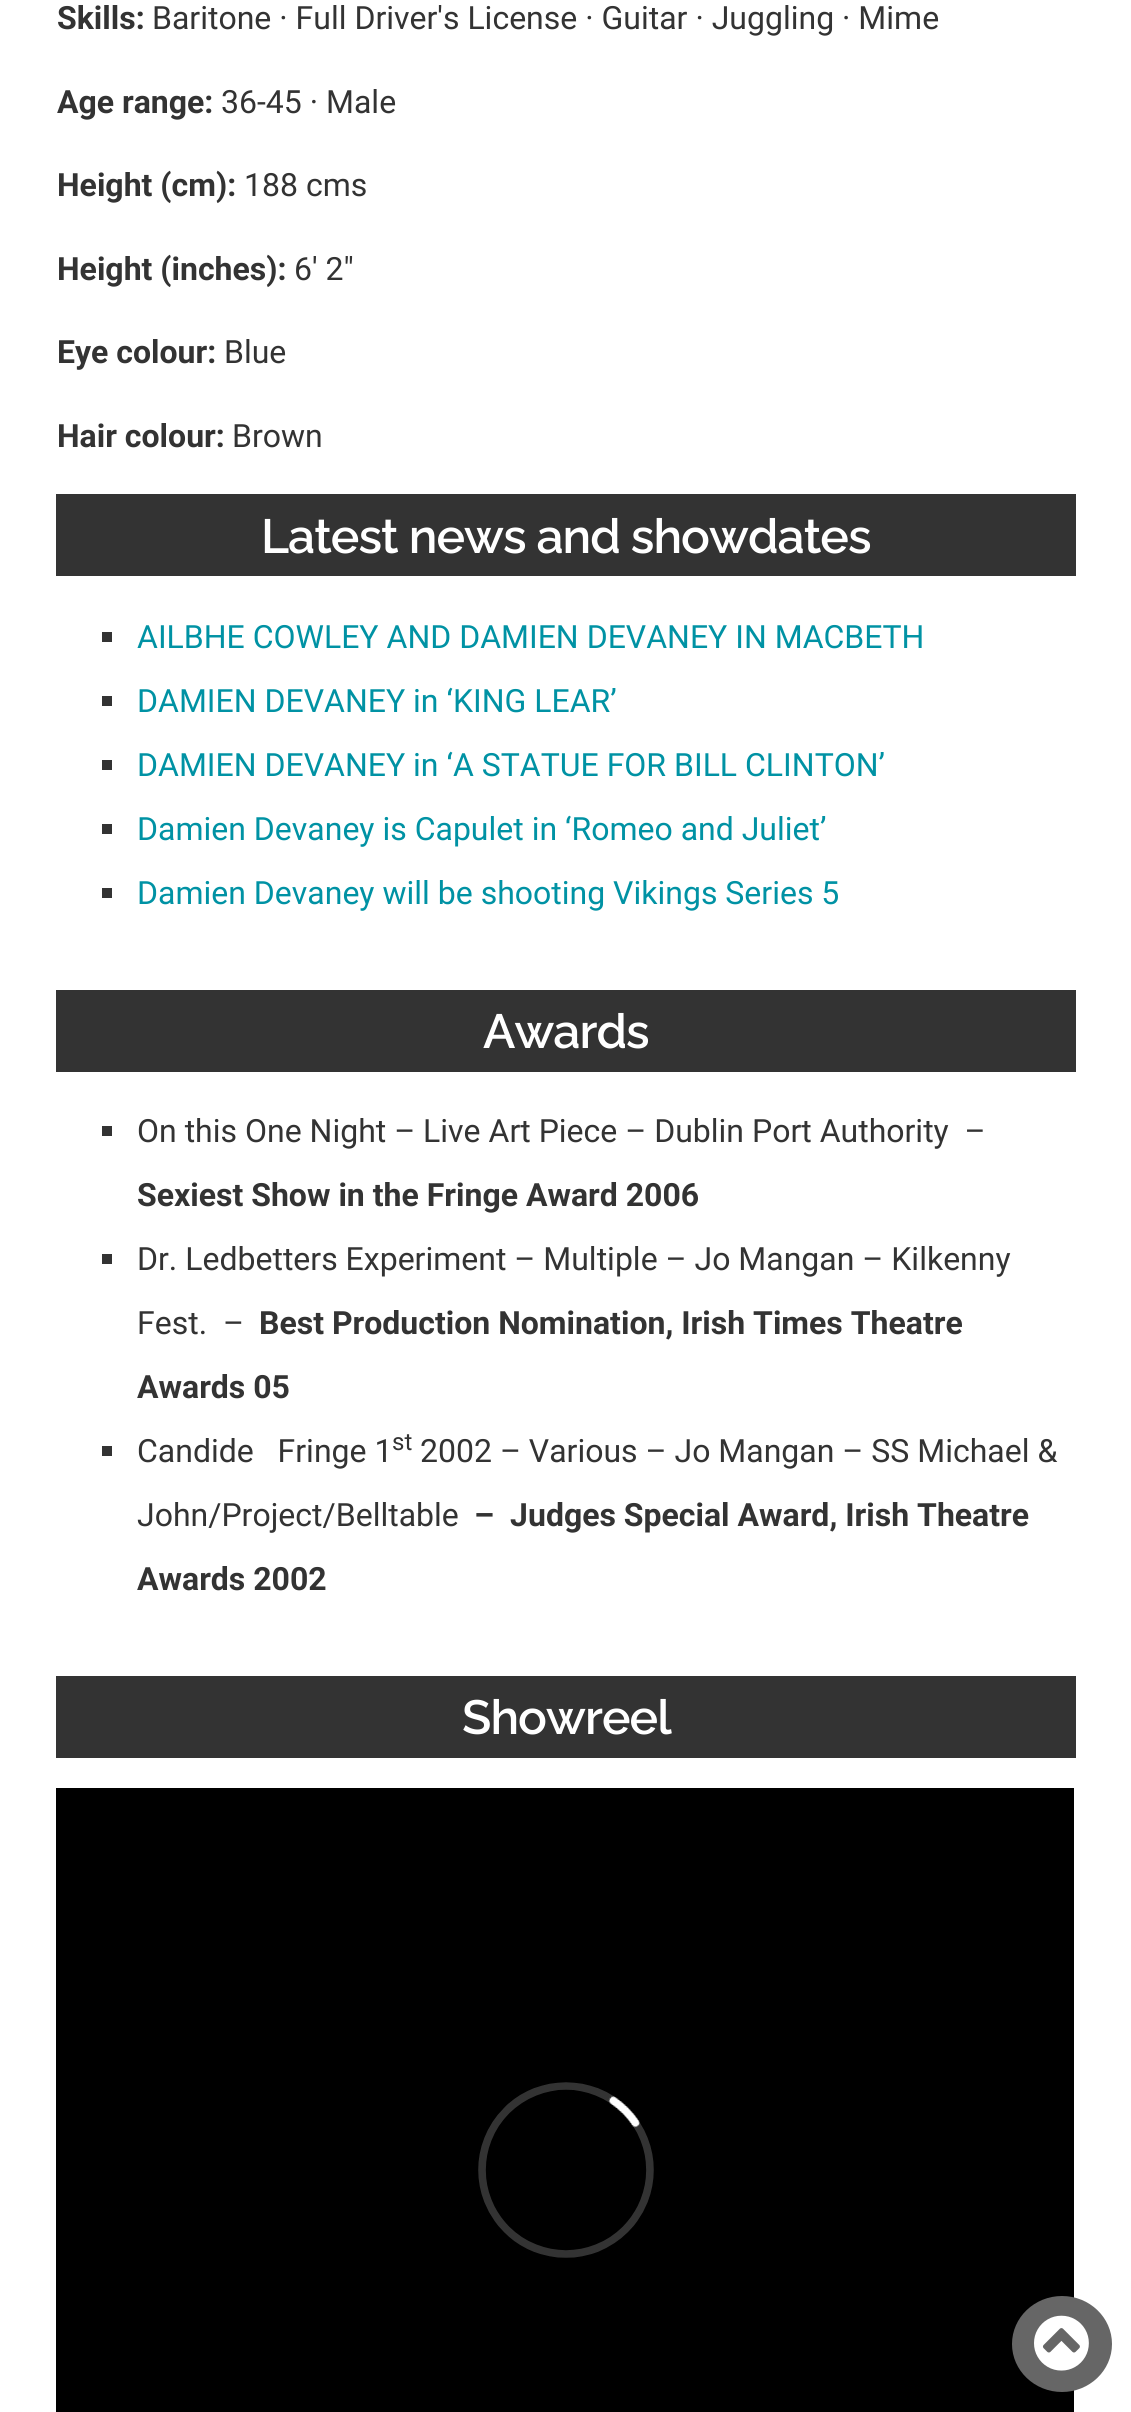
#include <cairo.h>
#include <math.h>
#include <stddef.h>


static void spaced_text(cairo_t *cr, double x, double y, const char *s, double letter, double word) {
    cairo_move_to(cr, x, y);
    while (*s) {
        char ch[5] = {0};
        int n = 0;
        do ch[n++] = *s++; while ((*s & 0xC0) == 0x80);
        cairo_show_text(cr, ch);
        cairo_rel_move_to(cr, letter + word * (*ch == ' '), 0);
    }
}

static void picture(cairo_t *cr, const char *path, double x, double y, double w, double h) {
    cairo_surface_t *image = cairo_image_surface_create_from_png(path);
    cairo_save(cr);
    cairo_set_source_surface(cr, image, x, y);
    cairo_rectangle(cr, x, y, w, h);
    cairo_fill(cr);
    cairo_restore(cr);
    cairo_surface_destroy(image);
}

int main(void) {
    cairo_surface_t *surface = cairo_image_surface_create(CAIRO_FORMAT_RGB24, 1131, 2412);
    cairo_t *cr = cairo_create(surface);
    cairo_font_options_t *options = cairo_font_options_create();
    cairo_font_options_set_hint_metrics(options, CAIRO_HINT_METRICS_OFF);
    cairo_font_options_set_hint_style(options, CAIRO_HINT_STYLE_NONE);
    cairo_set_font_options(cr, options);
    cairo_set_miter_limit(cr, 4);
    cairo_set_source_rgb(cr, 1, 1, 1);
    cairo_paint(cr);
    cairo_select_font_face(cr, "Roboto", CAIRO_FONT_SLANT_NORMAL, CAIRO_FONT_WEIGHT_BOLD);
    cairo_set_font_size(cr, 32);
    cairo_set_source_rgb(cr, 0.2, 0.2, 0.2);
    cairo_move_to(cr, 57, 29);
    cairo_show_text(cr, "Skills:");
    cairo_select_font_face(cr, "Roboto", CAIRO_FONT_SLANT_NORMAL, CAIRO_FONT_WEIGHT_NORMAL);
    cairo_move_to(cr, 152, 29);
    cairo_show_text(cr, "Baritone · Full Driver's License · Guitar · Juggling · Mime");
    cairo_select_font_face(cr, "Roboto", CAIRO_FONT_SLANT_NORMAL, CAIRO_FONT_WEIGHT_BOLD);
    cairo_move_to(cr, 57, 113);
    cairo_show_text(cr, "Age range:");
    cairo_select_font_face(cr, "Roboto", CAIRO_FONT_SLANT_NORMAL, CAIRO_FONT_WEIGHT_NORMAL);
    cairo_move_to(cr, 221, 113);
    cairo_show_text(cr, "36-45 · Male");
    cairo_select_font_face(cr, "Roboto", CAIRO_FONT_SLANT_NORMAL, CAIRO_FONT_WEIGHT_BOLD);
    cairo_move_to(cr, 57, 196);
    cairo_show_text(cr, "Height (cm):");
    cairo_select_font_face(cr, "Roboto", CAIRO_FONT_SLANT_NORMAL, CAIRO_FONT_WEIGHT_NORMAL);
    cairo_move_to(cr, 244, 196);
    cairo_show_text(cr, "188 cms");
    cairo_select_font_face(cr, "Roboto", CAIRO_FONT_SLANT_NORMAL, CAIRO_FONT_WEIGHT_BOLD);
    cairo_move_to(cr, 57, 280);
    cairo_show_text(cr, "Height (inches):");
    cairo_select_font_face(cr, "Roboto", CAIRO_FONT_SLANT_NORMAL, CAIRO_FONT_WEIGHT_NORMAL);
    cairo_move_to(cr, 294, 280);
    cairo_show_text(cr, "6' 2\"");
    cairo_select_font_face(cr, "Roboto", CAIRO_FONT_SLANT_NORMAL, CAIRO_FONT_WEIGHT_BOLD);
    cairo_move_to(cr, 57, 363);
    cairo_show_text(cr, "Eye colour:");
    cairo_select_font_face(cr, "Roboto", CAIRO_FONT_SLANT_NORMAL, CAIRO_FONT_WEIGHT_NORMAL);
    cairo_move_to(cr, 224, 363);
    cairo_show_text(cr, "Blue");
    cairo_select_font_face(cr, "Roboto", CAIRO_FONT_SLANT_NORMAL, CAIRO_FONT_WEIGHT_BOLD);
    cairo_move_to(cr, 57, 447);
    cairo_show_text(cr, "Hair colour:");
    cairo_select_font_face(cr, "Roboto", CAIRO_FONT_SLANT_NORMAL, CAIRO_FONT_WEIGHT_NORMAL);
    cairo_move_to(cr, 232, 447);
    cairo_show_text(cr, "Brown");
    cairo_rectangle(cr, 56, 494, 1020, 82);
    cairo_fill(cr);
    cairo_select_font_face(cr, "Raleway SemiBold", CAIRO_FONT_SLANT_NORMAL, CAIRO_FONT_WEIGHT_NORMAL);
    cairo_set_font_size(cr, 48);
    cairo_set_source_rgb(cr, 1, 1, 1);
    spaced_text(cr, 261, 553, "Latest news and showdates", -0.95, 0);
    cairo_set_source_rgb(cr, 0.2, 0.2, 0.2);
    cairo_rectangle(cr, 102, 632, 10, 10);
    cairo_fill(cr);
    cairo_select_font_face(cr, "Roboto", CAIRO_FONT_SLANT_NORMAL, CAIRO_FONT_WEIGHT_NORMAL);
    cairo_set_font_size(cr, 32);
    cairo_set_source_rgb(cr, 0, 0.573, 0.643);
    cairo_move_to(cr, 137, 648);
    cairo_show_text(cr, "AILBHE COWLEY AND DAMIEN DEVANEY IN MACBETH");
    cairo_set_source_rgb(cr, 0.2, 0.2, 0.2);
    cairo_rectangle(cr, 102, 696, 10, 10);
    cairo_fill(cr);
    cairo_set_source_rgb(cr, 0, 0.573, 0.643);
    cairo_move_to(cr, 137, 712);
    cairo_show_text(cr, "DAMIEN DEVANEY in ‘KING LEAR’");
    cairo_set_source_rgb(cr, 0.2, 0.2, 0.2);
    cairo_rectangle(cr, 102, 760, 10, 10);
    cairo_fill(cr);
    cairo_set_source_rgb(cr, 0, 0.573, 0.643);
    cairo_move_to(cr, 137, 776);
    cairo_show_text(cr, "DAMIEN DEVANEY in ‘A STATUE FOR BILL CLINTON’");
    cairo_set_source_rgb(cr, 0.2, 0.2, 0.2);
    cairo_rectangle(cr, 102, 824, 10, 10);
    cairo_fill(cr);
    cairo_set_source_rgb(cr, 0, 0.573, 0.643);
    cairo_move_to(cr, 137, 840);
    cairo_show_text(cr, "Damien Devaney is Capulet in ‘Romeo and Juliet’");
    cairo_set_source_rgb(cr, 0.2, 0.2, 0.2);
    cairo_rectangle(cr, 102, 888, 10, 10);
    cairo_fill(cr);
    cairo_set_source_rgb(cr, 0, 0.573, 0.643);
    cairo_move_to(cr, 137, 904);
    cairo_show_text(cr, "Damien Devaney will be shooting Vikings Series 5");
    cairo_set_source_rgb(cr, 0.2, 0.2, 0.2);
    cairo_rectangle(cr, 56, 990, 1020, 82);
    cairo_fill(cr);
    cairo_select_font_face(cr, "Raleway SemiBold", CAIRO_FONT_SLANT_NORMAL, CAIRO_FONT_WEIGHT_NORMAL);
    cairo_set_font_size(cr, 48);
    cairo_set_source_rgb(cr, 1, 1, 1);
    spaced_text(cr, 483, 1048, "Awards", -0.95, 0);
    cairo_set_source_rgb(cr, 0.2, 0.2, 0.2);
    cairo_rectangle(cr, 102, 1126, 10, 10);
    cairo_fill(cr);
    cairo_select_font_face(cr, "Roboto", CAIRO_FONT_SLANT_NORMAL, CAIRO_FONT_WEIGHT_NORMAL);
    cairo_set_font_size(cr, 32);
    cairo_move_to(cr, 137, 1142);
    cairo_show_text(cr, "On this One Night – Live Art Piece – Dublin Port Authority  –");
    cairo_select_font_face(cr, "Roboto", CAIRO_FONT_SLANT_NORMAL, CAIRO_FONT_WEIGHT_BOLD);
    cairo_move_to(cr, 137, 1206);
    cairo_show_text(cr, "Sexiest Show in the Fringe Award 2006");
    cairo_rectangle(cr, 102, 1254, 10, 10);
    cairo_fill(cr);
    cairo_select_font_face(cr, "Roboto", CAIRO_FONT_SLANT_NORMAL, CAIRO_FONT_WEIGHT_NORMAL);
    cairo_move_to(cr, 137, 1270);
    cairo_show_text(cr, "Dr. Ledbetters Experiment – Multiple – Jo Mangan – Kilkenny");
    cairo_move_to(cr, 137, 1334);
    cairo_show_text(cr, "Fest.  –");
    cairo_select_font_face(cr, "Roboto", CAIRO_FONT_SLANT_NORMAL, CAIRO_FONT_WEIGHT_BOLD);
    cairo_move_to(cr, 259, 1334);
    cairo_show_text(cr, "Best Production Nomination, Irish Times Theatre");
    cairo_move_to(cr, 137, 1398);
    cairo_show_text(cr, "Awards 05");
    cairo_rectangle(cr, 102, 1446, 10, 10);
    cairo_fill(cr);
    cairo_select_font_face(cr, "Roboto", CAIRO_FONT_SLANT_NORMAL, CAIRO_FONT_WEIGHT_NORMAL);
    cairo_move_to(cr, 137, 1462);
    cairo_show_text(cr, "Candide   Fringe 1");
    cairo_set_font_size(cr, 24);
    cairo_move_to(cr, 392, 1450);
    cairo_show_text(cr, "st");
    cairo_set_font_size(cr, 32);
    cairo_move_to(cr, 420, 1462);
    cairo_show_text(cr, "2002 – Various – Jo Mangan – SS Michael &");
    cairo_move_to(cr, 137, 1526);
    cairo_show_text(cr, "John/Project/Belltable");
    cairo_select_font_face(cr, "Roboto", CAIRO_FONT_SLANT_NORMAL, CAIRO_FONT_WEIGHT_BOLD);
    cairo_move_to(cr, 474, 1526);
    cairo_show_text(cr, "–  Judges Special Award, Irish Theatre");
    cairo_move_to(cr, 137, 1590);
    cairo_show_text(cr, "Awards 2002");
    cairo_rectangle(cr, 56, 1676, 1020, 82);
    cairo_fill(cr);
    cairo_select_font_face(cr, "Raleway SemiBold", CAIRO_FONT_SLANT_NORMAL, CAIRO_FONT_WEIGHT_NORMAL);
    cairo_set_font_size(cr, 48);
    cairo_set_source_rgb(cr, 1, 1, 1);
    spaced_text(cr, 462, 1734, "Showreel", -0.95, 0);
    picture(cr, "img1.png", 56, 1788, 1018, 624);
    cairo_set_source_rgb(cr, 0.4, 0.4, 0.4);
    cairo_new_path(cr);
    cairo_move_to(cr, 1062, 2296);
    cairo_curve_to(cr, 1089.5, 2296, 1112, 2317.5, 1112, 2344);
    cairo_curve_to(cr, 1112, 2370.5, 1089.5, 2392, 1062, 2392);
    cairo_curve_to(cr, 1034.5, 2392, 1012, 2370.5, 1012, 2344);
    cairo_curve_to(cr, 1012, 2317.5, 1034.5, 2296, 1062, 2296);
    cairo_close_path(cr);
    cairo_fill(cr);
    picture(cr, "img2.png", 1034, 2315, 55, 56);
    cairo_surface_write_to_png(surface, "page.png");
    cairo_font_options_destroy(options);
    cairo_destroy(cr);
    cairo_surface_destroy(surface);
    return 0;
}
